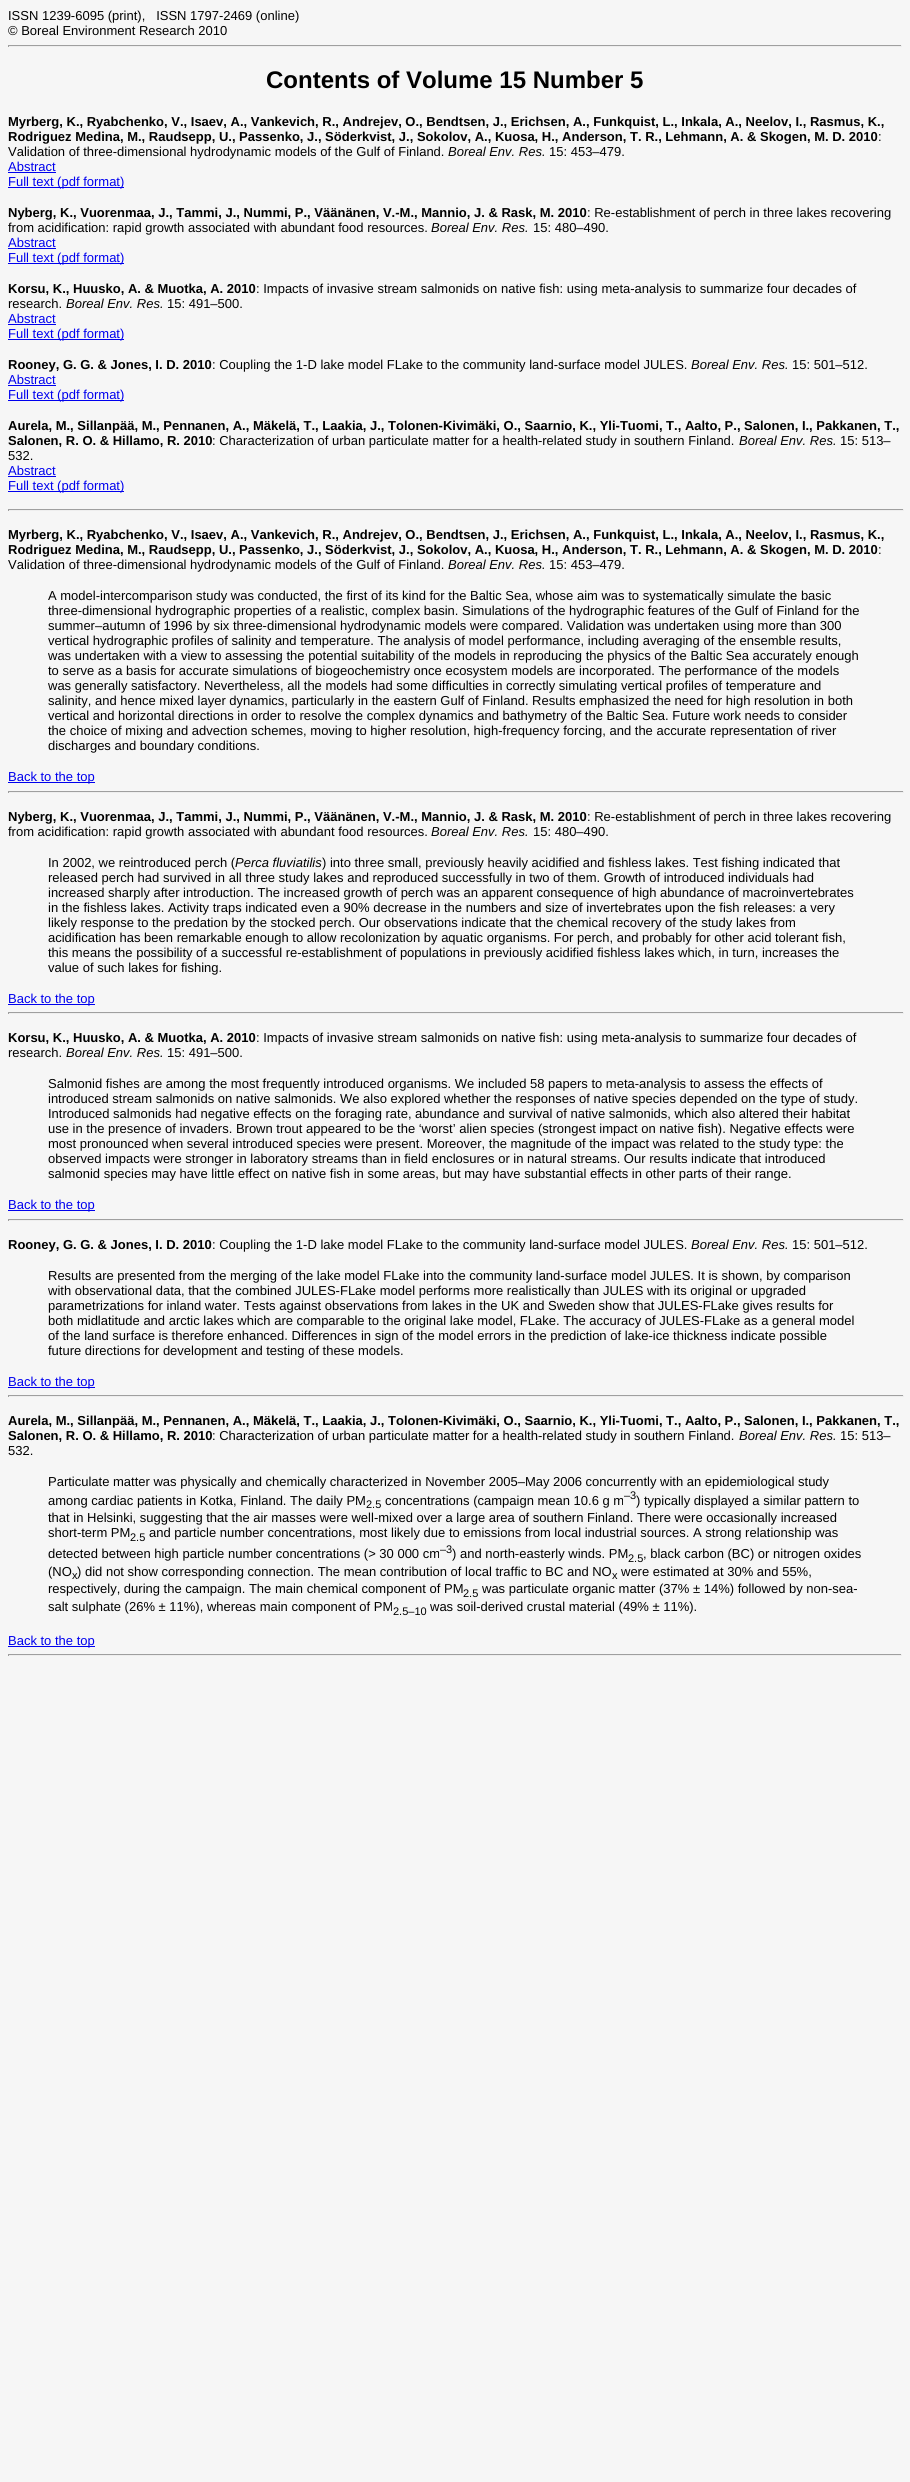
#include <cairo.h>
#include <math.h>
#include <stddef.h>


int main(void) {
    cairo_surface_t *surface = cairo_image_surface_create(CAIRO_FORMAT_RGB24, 910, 2482);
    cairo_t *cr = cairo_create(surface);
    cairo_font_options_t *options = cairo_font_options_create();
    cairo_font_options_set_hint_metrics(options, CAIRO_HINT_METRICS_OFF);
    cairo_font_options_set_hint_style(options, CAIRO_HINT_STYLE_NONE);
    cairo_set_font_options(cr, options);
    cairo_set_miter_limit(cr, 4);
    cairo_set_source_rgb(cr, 0.961, 0.961, 0.961);
    cairo_paint(cr);
    cairo_select_font_face(cr, "Liberation Sans", CAIRO_FONT_SLANT_NORMAL, CAIRO_FONT_WEIGHT_NORMAL);
    cairo_set_font_size(cr, 13);
    cairo_set_source_rgb(cr, 0, 0, 0);
    cairo_move_to(cr, 8, 20);
    cairo_show_text(cr, "ISSN 1239-6095 (print),   ISSN 1797-2469 (online)");
    cairo_move_to(cr, 8, 35);
    cairo_show_text(cr, "© Boreal Environment Research 2010");
    cairo_set_source_rgb(cr, 0.624, 0.624, 0.624);
    cairo_rectangle(cr, 8, 45, 894, 1);
    cairo_fill(cr);
    cairo_set_source_rgb(cr, 0.933, 0.933, 0.933);
    cairo_rectangle(cr, 901, 45, 1, 2);
    cairo_fill(cr);
    cairo_rectangle(cr, 8, 46, 894, 1);
    cairo_fill(cr);
    cairo_set_source_rgb(cr, 0.624, 0.624, 0.624);
    cairo_rectangle(cr, 8, 45, 1, 2);
    cairo_fill(cr);
    cairo_select_font_face(cr, "Liberation Sans", CAIRO_FONT_SLANT_NORMAL, CAIRO_FONT_WEIGHT_BOLD);
    cairo_set_font_size(cr, 24);
    cairo_set_source_rgb(cr, 0, 0, 0);
    cairo_move_to(cr, 266, 88);
    cairo_show_text(cr, "Contents of Volume 15 Number 5");
    cairo_set_font_size(cr, 13);
    cairo_move_to(cr, 8, 126);
    cairo_show_text(cr, "Myrberg, K., Ryabchenko, V., Isaev, A., Vankevich, R., Andrejev, O., Bendtsen, J., Erichsen, A., Funkquist, L., Inkala, A., Neelov, I., Rasmus, K.,");
    cairo_move_to(cr, 8, 141);
    cairo_show_text(cr, "Rodriguez Medina, M., Raudsepp, U., Passenko, J., Söderkvist, J., Sokolov, A., Kuosa, H., Anderson, T. R., Lehmann, A. & Skogen, M. D. 2010");
    cairo_select_font_face(cr, "Liberation Sans", CAIRO_FONT_SLANT_NORMAL, CAIRO_FONT_WEIGHT_NORMAL);
    cairo_move_to(cr, 878, 141);
    cairo_show_text(cr, ":");
    cairo_move_to(cr, 8, 156);
    cairo_show_text(cr, "Validation of three-dimensional hydrodynamic models of the Gulf of Finland.");
    cairo_select_font_face(cr, "Liberation Sans", CAIRO_FONT_SLANT_ITALIC, CAIRO_FONT_WEIGHT_NORMAL);
    cairo_move_to(cr, 448, 156);
    cairo_show_text(cr, "Boreal Env. Res.");
    cairo_select_font_face(cr, "Liberation Sans", CAIRO_FONT_SLANT_NORMAL, CAIRO_FONT_WEIGHT_NORMAL);
    cairo_move_to(cr, 549, 156);
    cairo_show_text(cr, "15: 453–479.");
    cairo_set_source_rgb(cr, 0, 0, 0.933);
    cairo_move_to(cr, 8, 171);
    cairo_show_text(cr, "Abstract");
    cairo_rectangle(cr, 8, 172, 48, 1);
    cairo_fill(cr);
    cairo_rectangle(cr, 8, 187, 116, 1);
    cairo_fill(cr);
    cairo_move_to(cr, 8, 186);
    cairo_show_text(cr, "Full text (pdf format)");
    cairo_select_font_face(cr, "Liberation Sans", CAIRO_FONT_SLANT_NORMAL, CAIRO_FONT_WEIGHT_BOLD);
    cairo_set_source_rgb(cr, 0, 0, 0);
    cairo_move_to(cr, 8, 217);
    cairo_show_text(cr, "Nyberg, K., Vuorenmaa, J., Tammi, J., Nummi, P., Väänänen, V.-M., Mannio, J. & Rask, M. 2010");
    cairo_select_font_face(cr, "Liberation Sans", CAIRO_FONT_SLANT_NORMAL, CAIRO_FONT_WEIGHT_NORMAL);
    cairo_move_to(cr, 587, 217);
    cairo_show_text(cr, ": Re-establishment of perch in three lakes recovering");
    cairo_move_to(cr, 8, 232);
    cairo_show_text(cr, "from acidification: rapid growth associated with abundant food resources.");
    cairo_select_font_face(cr, "Liberation Sans", CAIRO_FONT_SLANT_ITALIC, CAIRO_FONT_WEIGHT_NORMAL);
    cairo_move_to(cr, 431, 232);
    cairo_show_text(cr, "Boreal Env. Res.");
    cairo_select_font_face(cr, "Liberation Sans", CAIRO_FONT_SLANT_NORMAL, CAIRO_FONT_WEIGHT_NORMAL);
    cairo_move_to(cr, 533, 232);
    cairo_show_text(cr, "15: 480–490.");
    cairo_set_source_rgb(cr, 0, 0, 0.933);
    cairo_move_to(cr, 8, 247);
    cairo_show_text(cr, "Abstract");
    cairo_rectangle(cr, 8, 248, 48, 1);
    cairo_fill(cr);
    cairo_rectangle(cr, 8, 263, 116, 1);
    cairo_fill(cr);
    cairo_move_to(cr, 8, 262);
    cairo_show_text(cr, "Full text (pdf format)");
    cairo_select_font_face(cr, "Liberation Sans", CAIRO_FONT_SLANT_NORMAL, CAIRO_FONT_WEIGHT_BOLD);
    cairo_set_source_rgb(cr, 0, 0, 0);
    cairo_move_to(cr, 8, 293);
    cairo_show_text(cr, "Korsu, K., Huusko, A. & Muotka, A. 2010");
    cairo_select_font_face(cr, "Liberation Sans", CAIRO_FONT_SLANT_NORMAL, CAIRO_FONT_WEIGHT_NORMAL);
    cairo_move_to(cr, 256, 293);
    cairo_show_text(cr, ": Impacts of invasive stream salmonids on native fish: using meta-analysis to summarize four decades of");
    cairo_move_to(cr, 8, 308);
    cairo_show_text(cr, "research.");
    cairo_select_font_face(cr, "Liberation Sans", CAIRO_FONT_SLANT_ITALIC, CAIRO_FONT_WEIGHT_NORMAL);
    cairo_move_to(cr, 66, 308);
    cairo_show_text(cr, "Boreal Env. Res.");
    cairo_select_font_face(cr, "Liberation Sans", CAIRO_FONT_SLANT_NORMAL, CAIRO_FONT_WEIGHT_NORMAL);
    cairo_move_to(cr, 167, 308);
    cairo_show_text(cr, "15: 491–500.");
    cairo_set_source_rgb(cr, 0, 0, 0.933);
    cairo_move_to(cr, 8, 323);
    cairo_show_text(cr, "Abstract");
    cairo_rectangle(cr, 8, 324, 48, 1);
    cairo_fill(cr);
    cairo_rectangle(cr, 8, 339, 116, 1);
    cairo_fill(cr);
    cairo_move_to(cr, 8, 338);
    cairo_show_text(cr, "Full text (pdf format)");
    cairo_select_font_face(cr, "Liberation Sans", CAIRO_FONT_SLANT_NORMAL, CAIRO_FONT_WEIGHT_BOLD);
    cairo_set_source_rgb(cr, 0, 0, 0);
    cairo_move_to(cr, 8, 369);
    cairo_show_text(cr, "Rooney, G. G. & Jones, I. D. 2010");
    cairo_select_font_face(cr, "Liberation Sans", CAIRO_FONT_SLANT_NORMAL, CAIRO_FONT_WEIGHT_NORMAL);
    cairo_move_to(cr, 212, 369);
    cairo_show_text(cr, ": Coupling the 1-D lake model FLake to the community land-surface model JULES.");
    cairo_select_font_face(cr, "Liberation Sans", CAIRO_FONT_SLANT_ITALIC, CAIRO_FONT_WEIGHT_NORMAL);
    cairo_move_to(cr, 691, 369);
    cairo_show_text(cr, "Boreal Env. Res.");
    cairo_select_font_face(cr, "Liberation Sans", CAIRO_FONT_SLANT_NORMAL, CAIRO_FONT_WEIGHT_NORMAL);
    cairo_move_to(cr, 792, 369);
    cairo_show_text(cr, "15: 501–512.");
    cairo_set_source_rgb(cr, 0, 0, 0.933);
    cairo_move_to(cr, 8, 384);
    cairo_show_text(cr, "Abstract");
    cairo_rectangle(cr, 8, 385, 48, 1);
    cairo_fill(cr);
    cairo_rectangle(cr, 8, 400, 116, 1);
    cairo_fill(cr);
    cairo_move_to(cr, 8, 399);
    cairo_show_text(cr, "Full text (pdf format)");
    cairo_select_font_face(cr, "Liberation Sans", CAIRO_FONT_SLANT_NORMAL, CAIRO_FONT_WEIGHT_BOLD);
    cairo_set_source_rgb(cr, 0, 0, 0);
    cairo_move_to(cr, 8, 430);
    cairo_show_text(cr, "Aurela, M., Sillanpää, M., Pennanen, A., Mäkelä, T., Laakia, J., Tolonen-Kivimäki, O., Saarnio, K., Yli-Tuomi, T., Aalto, P., Salonen, I., Pakkanen, T.,");
    cairo_move_to(cr, 8, 445);
    cairo_show_text(cr, "Salonen, R. O. & Hillamo, R. 2010");
    cairo_select_font_face(cr, "Liberation Sans", CAIRO_FONT_SLANT_NORMAL, CAIRO_FONT_WEIGHT_NORMAL);
    cairo_move_to(cr, 212, 445);
    cairo_show_text(cr, ": Characterization of urban particulate matter for a health-related study in southern Finland.");
    cairo_select_font_face(cr, "Liberation Sans", CAIRO_FONT_SLANT_ITALIC, CAIRO_FONT_WEIGHT_NORMAL);
    cairo_move_to(cr, 739, 445);
    cairo_show_text(cr, "Boreal Env. Res.");
    cairo_select_font_face(cr, "Liberation Sans", CAIRO_FONT_SLANT_NORMAL, CAIRO_FONT_WEIGHT_NORMAL);
    cairo_move_to(cr, 840, 445);
    cairo_show_text(cr, "15: 513–");
    cairo_move_to(cr, 8, 460);
    cairo_show_text(cr, "532.");
    cairo_set_source_rgb(cr, 0, 0, 0.933);
    cairo_move_to(cr, 8, 475);
    cairo_show_text(cr, "Abstract");
    cairo_rectangle(cr, 8, 476, 48, 1);
    cairo_fill(cr);
    cairo_rectangle(cr, 8, 491, 116, 1);
    cairo_fill(cr);
    cairo_move_to(cr, 8, 490);
    cairo_show_text(cr, "Full text (pdf format)");
    cairo_set_source_rgb(cr, 0.624, 0.624, 0.624);
    cairo_rectangle(cr, 8, 509, 896, 1);
    cairo_fill(cr);
    cairo_set_source_rgb(cr, 0.933, 0.933, 0.933);
    cairo_rectangle(cr, 903, 509, 1, 2);
    cairo_fill(cr);
    cairo_rectangle(cr, 8, 510, 896, 1);
    cairo_fill(cr);
    cairo_set_source_rgb(cr, 0.624, 0.624, 0.624);
    cairo_rectangle(cr, 8, 509, 1, 2);
    cairo_fill(cr);
    cairo_select_font_face(cr, "Liberation Sans", CAIRO_FONT_SLANT_NORMAL, CAIRO_FONT_WEIGHT_BOLD);
    cairo_set_source_rgb(cr, 0, 0, 0);
    cairo_move_to(cr, 8, 539);
    cairo_show_text(cr, "Myrberg, K., Ryabchenko, V., Isaev, A., Vankevich, R., Andrejev, O., Bendtsen, J., Erichsen, A., Funkquist, L., Inkala, A., Neelov, I., Rasmus, K.,");
    cairo_move_to(cr, 8, 554);
    cairo_show_text(cr, "Rodriguez Medina, M., Raudsepp, U., Passenko, J., Söderkvist, J., Sokolov, A., Kuosa, H., Anderson, T. R., Lehmann, A. & Skogen, M. D. 2010");
    cairo_select_font_face(cr, "Liberation Sans", CAIRO_FONT_SLANT_NORMAL, CAIRO_FONT_WEIGHT_NORMAL);
    cairo_move_to(cr, 878, 554);
    cairo_show_text(cr, ":");
    cairo_move_to(cr, 8, 569);
    cairo_show_text(cr, "Validation of three-dimensional hydrodynamic models of the Gulf of Finland.");
    cairo_select_font_face(cr, "Liberation Sans", CAIRO_FONT_SLANT_ITALIC, CAIRO_FONT_WEIGHT_NORMAL);
    cairo_move_to(cr, 448, 569);
    cairo_show_text(cr, "Boreal Env. Res.");
    cairo_select_font_face(cr, "Liberation Sans", CAIRO_FONT_SLANT_NORMAL, CAIRO_FONT_WEIGHT_NORMAL);
    cairo_move_to(cr, 549, 569);
    cairo_show_text(cr, "15: 453–479.");
    cairo_move_to(cr, 48, 600);
    cairo_show_text(cr, "A model-intercomparison study was conducted, the first of its kind for the Baltic Sea, whose aim was to systematically simulate the basic");
    cairo_move_to(cr, 48, 615);
    cairo_show_text(cr, "three-dimensional hydrographic properties of a realistic, complex basin. Simulations of the hydrographic features of the Gulf of Finland for the");
    cairo_move_to(cr, 48, 630);
    cairo_show_text(cr, "summer–autumn of 1996 by six three-dimensional hydrodynamic models were compared. Validation was undertaken using more than 300");
    cairo_move_to(cr, 48, 645);
    cairo_show_text(cr, "vertical hydrographic profiles of salinity and temperature. The analysis of model performance, including averaging of the ensemble results,");
    cairo_move_to(cr, 48, 660);
    cairo_show_text(cr, "was undertaken with a view to assessing the potential suitability of the models in reproducing the physics of the Baltic Sea accurately enough");
    cairo_move_to(cr, 48, 675);
    cairo_show_text(cr, "to serve as a basis for accurate simulations of biogeochemistry once ecosystem models are incorporated. The performance of the models");
    cairo_move_to(cr, 48, 690);
    cairo_show_text(cr, "was generally satisfactory. Nevertheless, all the models had some difficulties in correctly simulating vertical profiles of temperature and");
    cairo_move_to(cr, 48, 705);
    cairo_show_text(cr, "salinity, and hence mixed layer dynamics, particularly in the eastern Gulf of Finland. Results emphasized the need for high resolution in both");
    cairo_move_to(cr, 48, 720);
    cairo_show_text(cr, "vertical and horizontal directions in order to resolve the complex dynamics and bathymetry of the Baltic Sea. Future work needs to consider");
    cairo_move_to(cr, 48, 735);
    cairo_show_text(cr, "the choice of mixing and advection schemes, moving to higher resolution, high-frequency forcing, and the accurate representation of river");
    cairo_move_to(cr, 48, 750);
    cairo_show_text(cr, "discharges and boundary conditions.");
    cairo_set_source_rgb(cr, 0, 0, 0.933);
    cairo_rectangle(cr, 8, 782, 87, 1);
    cairo_fill(cr);
    cairo_move_to(cr, 8, 781);
    cairo_show_text(cr, "Back to the top");
    cairo_set_source_rgb(cr, 0.624, 0.624, 0.624);
    cairo_rectangle(cr, 8, 791, 896, 1);
    cairo_fill(cr);
    cairo_set_source_rgb(cr, 0.933, 0.933, 0.933);
    cairo_rectangle(cr, 903, 791, 1, 2);
    cairo_fill(cr);
    cairo_rectangle(cr, 8, 792, 896, 1);
    cairo_fill(cr);
    cairo_set_source_rgb(cr, 0.624, 0.624, 0.624);
    cairo_rectangle(cr, 8, 791, 1, 2);
    cairo_fill(cr);
    cairo_select_font_face(cr, "Liberation Sans", CAIRO_FONT_SLANT_NORMAL, CAIRO_FONT_WEIGHT_BOLD);
    cairo_set_source_rgb(cr, 0, 0, 0);
    cairo_move_to(cr, 8, 821);
    cairo_show_text(cr, "Nyberg, K., Vuorenmaa, J., Tammi, J., Nummi, P., Väänänen, V.-M., Mannio, J. & Rask, M. 2010");
    cairo_select_font_face(cr, "Liberation Sans", CAIRO_FONT_SLANT_NORMAL, CAIRO_FONT_WEIGHT_NORMAL);
    cairo_move_to(cr, 587, 821);
    cairo_show_text(cr, ": Re-establishment of perch in three lakes recovering");
    cairo_move_to(cr, 8, 836);
    cairo_show_text(cr, "from acidification: rapid growth associated with abundant food resources.");
    cairo_select_font_face(cr, "Liberation Sans", CAIRO_FONT_SLANT_ITALIC, CAIRO_FONT_WEIGHT_NORMAL);
    cairo_move_to(cr, 431, 836);
    cairo_show_text(cr, "Boreal Env. Res.");
    cairo_select_font_face(cr, "Liberation Sans", CAIRO_FONT_SLANT_NORMAL, CAIRO_FONT_WEIGHT_NORMAL);
    cairo_move_to(cr, 533, 836);
    cairo_show_text(cr, "15: 480–490.");
    cairo_move_to(cr, 48, 867);
    cairo_show_text(cr, "In 2002, we reintroduced perch (");
    cairo_select_font_face(cr, "Liberation Sans", CAIRO_FONT_SLANT_ITALIC, CAIRO_FONT_WEIGHT_NORMAL);
    cairo_move_to(cr, 235, 867);
    cairo_show_text(cr, "Perca fluviatilis");
    cairo_select_font_face(cr, "Liberation Sans", CAIRO_FONT_SLANT_NORMAL, CAIRO_FONT_WEIGHT_NORMAL);
    cairo_move_to(cr, 322, 867);
    cairo_show_text(cr, ") into three small, previously heavily acidified and fishless lakes. Test fishing indicated that");
    cairo_move_to(cr, 48, 882);
    cairo_show_text(cr, "released perch had survived in all three study lakes and reproduced successfully in two of them. Growth of introduced individuals had");
    cairo_move_to(cr, 48, 897);
    cairo_show_text(cr, "increased sharply after introduction. The increased growth of perch was an apparent consequence of high abundance of macroinvertebrates");
    cairo_move_to(cr, 48, 912);
    cairo_show_text(cr, "in the fishless lakes. Activity traps indicated even a 90% decrease in the numbers and size of invertebrates upon the fish releases: a very");
    cairo_move_to(cr, 48, 927);
    cairo_show_text(cr, "likely response to the predation by the stocked perch. Our observations indicate that the chemical recovery of the study lakes from");
    cairo_move_to(cr, 48, 942);
    cairo_show_text(cr, "acidification has been remarkable enough to allow recolonization by aquatic organisms. For perch, and probably for other acid tolerant fish,");
    cairo_move_to(cr, 48, 957);
    cairo_show_text(cr, "this means the possibility of a successful re-establishment of populations in previously acidified fishless lakes which, in turn, increases the");
    cairo_move_to(cr, 48, 972);
    cairo_show_text(cr, "value of such lakes for fishing.");
    cairo_set_source_rgb(cr, 0, 0, 0.933);
    cairo_rectangle(cr, 8, 1004, 87, 1);
    cairo_fill(cr);
    cairo_move_to(cr, 8, 1003);
    cairo_show_text(cr, "Back to the top");
    cairo_set_source_rgb(cr, 0.624, 0.624, 0.624);
    cairo_rectangle(cr, 8, 1012, 896, 1);
    cairo_fill(cr);
    cairo_set_source_rgb(cr, 0.933, 0.933, 0.933);
    cairo_rectangle(cr, 903, 1012, 1, 2);
    cairo_fill(cr);
    cairo_rectangle(cr, 8, 1013, 896, 1);
    cairo_fill(cr);
    cairo_set_source_rgb(cr, 0.624, 0.624, 0.624);
    cairo_rectangle(cr, 8, 1012, 1, 2);
    cairo_fill(cr);
    cairo_select_font_face(cr, "Liberation Sans", CAIRO_FONT_SLANT_NORMAL, CAIRO_FONT_WEIGHT_BOLD);
    cairo_set_source_rgb(cr, 0, 0, 0);
    cairo_move_to(cr, 8, 1042);
    cairo_show_text(cr, "Korsu, K., Huusko, A. & Muotka, A. 2010");
    cairo_select_font_face(cr, "Liberation Sans", CAIRO_FONT_SLANT_NORMAL, CAIRO_FONT_WEIGHT_NORMAL);
    cairo_move_to(cr, 256, 1042);
    cairo_show_text(cr, ": Impacts of invasive stream salmonids on native fish: using meta-analysis to summarize four decades of");
    cairo_move_to(cr, 8, 1057);
    cairo_show_text(cr, "research.");
    cairo_select_font_face(cr, "Liberation Sans", CAIRO_FONT_SLANT_ITALIC, CAIRO_FONT_WEIGHT_NORMAL);
    cairo_move_to(cr, 66, 1057);
    cairo_show_text(cr, "Boreal Env. Res.");
    cairo_select_font_face(cr, "Liberation Sans", CAIRO_FONT_SLANT_NORMAL, CAIRO_FONT_WEIGHT_NORMAL);
    cairo_move_to(cr, 167, 1057);
    cairo_show_text(cr, "15: 491–500.");
    cairo_move_to(cr, 48, 1088);
    cairo_show_text(cr, "Salmonid fishes are among the most frequently introduced organisms. We included 58 papers to meta-analysis to assess the effects of");
    cairo_move_to(cr, 48, 1103);
    cairo_show_text(cr, "introduced stream salmonids on native salmonids. We also explored whether the responses of native species depended on the type of study.");
    cairo_move_to(cr, 48, 1118);
    cairo_show_text(cr, "Introduced salmonids had negative effects on the foraging rate, abundance and survival of native salmonids, which also altered their habitat");
    cairo_move_to(cr, 48, 1133);
    cairo_show_text(cr, "use in the presence of invaders. Brown trout appeared to be the ‘worst’ alien species (strongest impact on native fish). Negative effects were");
    cairo_move_to(cr, 48, 1148);
    cairo_show_text(cr, "most pronounced when several introduced species were present. Moreover, the magnitude of the impact was related to the study type: the");
    cairo_move_to(cr, 48, 1163);
    cairo_show_text(cr, "observed impacts were stronger in laboratory streams than in field enclosures or in natural streams. Our results indicate that introduced");
    cairo_move_to(cr, 48, 1178);
    cairo_show_text(cr, "salmonid species may have little effect on native fish in some areas, but may have substantial effects in other parts of their range.");
    cairo_set_source_rgb(cr, 0, 0, 0.933);
    cairo_rectangle(cr, 8, 1210, 87, 1);
    cairo_fill(cr);
    cairo_move_to(cr, 8, 1209);
    cairo_show_text(cr, "Back to the top");
    cairo_set_source_rgb(cr, 0.624, 0.624, 0.624);
    cairo_rectangle(cr, 8, 1219, 896, 1);
    cairo_fill(cr);
    cairo_set_source_rgb(cr, 0.933, 0.933, 0.933);
    cairo_rectangle(cr, 903, 1219, 1, 2);
    cairo_fill(cr);
    cairo_rectangle(cr, 8, 1220, 896, 1);
    cairo_fill(cr);
    cairo_set_source_rgb(cr, 0.624, 0.624, 0.624);
    cairo_rectangle(cr, 8, 1219, 1, 2);
    cairo_fill(cr);
    cairo_select_font_face(cr, "Liberation Sans", CAIRO_FONT_SLANT_NORMAL, CAIRO_FONT_WEIGHT_BOLD);
    cairo_set_source_rgb(cr, 0, 0, 0);
    cairo_move_to(cr, 8, 1249);
    cairo_show_text(cr, "Rooney, G. G. & Jones, I. D. 2010");
    cairo_select_font_face(cr, "Liberation Sans", CAIRO_FONT_SLANT_NORMAL, CAIRO_FONT_WEIGHT_NORMAL);
    cairo_move_to(cr, 212, 1249);
    cairo_show_text(cr, ": Coupling the 1-D lake model FLake to the community land-surface model JULES.");
    cairo_select_font_face(cr, "Liberation Sans", CAIRO_FONT_SLANT_ITALIC, CAIRO_FONT_WEIGHT_NORMAL);
    cairo_move_to(cr, 691, 1249);
    cairo_show_text(cr, "Boreal Env. Res.");
    cairo_select_font_face(cr, "Liberation Sans", CAIRO_FONT_SLANT_NORMAL, CAIRO_FONT_WEIGHT_NORMAL);
    cairo_move_to(cr, 792, 1249);
    cairo_show_text(cr, "15: 501–512.");
    cairo_move_to(cr, 48, 1280);
    cairo_show_text(cr, "Results are presented from the merging of the lake model FLake into the community land-surface model JULES. It is shown, by comparison");
    cairo_move_to(cr, 48, 1295);
    cairo_show_text(cr, "with observational data, that the combined JULES-FLake model performs more realistically than JULES with its original or upgraded");
    cairo_move_to(cr, 48, 1310);
    cairo_show_text(cr, "parametrizations for inland water. Tests against observations from lakes in the UK and Sweden show that JULES-FLake gives results for");
    cairo_move_to(cr, 48, 1325);
    cairo_show_text(cr, "both midlatitude and arctic lakes which are comparable to the original lake model, FLake. The accuracy of JULES-FLake as a general model");
    cairo_move_to(cr, 48, 1340);
    cairo_show_text(cr, "of the land surface is therefore enhanced. Differences in sign of the model errors in the prediction of lake-ice thickness indicate possible");
    cairo_move_to(cr, 48, 1355);
    cairo_show_text(cr, "future directions for development and testing of these models.");
    cairo_set_source_rgb(cr, 0, 0, 0.933);
    cairo_rectangle(cr, 8, 1387, 87, 1);
    cairo_fill(cr);
    cairo_move_to(cr, 8, 1386);
    cairo_show_text(cr, "Back to the top");
    cairo_set_source_rgb(cr, 0.624, 0.624, 0.624);
    cairo_rectangle(cr, 8, 1395, 896, 1);
    cairo_fill(cr);
    cairo_set_source_rgb(cr, 0.933, 0.933, 0.933);
    cairo_rectangle(cr, 903, 1395, 1, 2);
    cairo_fill(cr);
    cairo_rectangle(cr, 8, 1396, 896, 1);
    cairo_fill(cr);
    cairo_set_source_rgb(cr, 0.624, 0.624, 0.624);
    cairo_rectangle(cr, 8, 1395, 1, 2);
    cairo_fill(cr);
    cairo_select_font_face(cr, "Liberation Sans", CAIRO_FONT_SLANT_NORMAL, CAIRO_FONT_WEIGHT_BOLD);
    cairo_set_source_rgb(cr, 0, 0, 0);
    cairo_move_to(cr, 8, 1425);
    cairo_show_text(cr, "Aurela, M., Sillanpää, M., Pennanen, A., Mäkelä, T., Laakia, J., Tolonen-Kivimäki, O., Saarnio, K., Yli-Tuomi, T., Aalto, P., Salonen, I., Pakkanen, T.,");
    cairo_move_to(cr, 8, 1440);
    cairo_show_text(cr, "Salonen, R. O. & Hillamo, R. 2010");
    cairo_select_font_face(cr, "Liberation Sans", CAIRO_FONT_SLANT_NORMAL, CAIRO_FONT_WEIGHT_NORMAL);
    cairo_move_to(cr, 212, 1440);
    cairo_show_text(cr, ": Characterization of urban particulate matter for a health-related study in southern Finland.");
    cairo_select_font_face(cr, "Liberation Sans", CAIRO_FONT_SLANT_ITALIC, CAIRO_FONT_WEIGHT_NORMAL);
    cairo_move_to(cr, 739, 1440);
    cairo_show_text(cr, "Boreal Env. Res.");
    cairo_select_font_face(cr, "Liberation Sans", CAIRO_FONT_SLANT_NORMAL, CAIRO_FONT_WEIGHT_NORMAL);
    cairo_move_to(cr, 840, 1440);
    cairo_show_text(cr, "15: 513–");
    cairo_move_to(cr, 8, 1455);
    cairo_show_text(cr, "532.");
    cairo_move_to(cr, 48, 1486);
    cairo_show_text(cr, "Particulate matter was physically and chemically characterized in November 2005–May 2006 concurrently with an epidemiological study");
    cairo_move_to(cr, 48, 1505);
    cairo_show_text(cr, "among cardiac patients in Kotka, Finland. The daily PM");
    cairo_set_font_size(cr, 11);
    cairo_move_to(cr, 366, 1508);
    cairo_show_text(cr, "2.5");
    cairo_set_font_size(cr, 13);
    cairo_move_to(cr, 385, 1505);
    cairo_show_text(cr, "concentrations (campaign mean 10.6 g m");
    cairo_set_font_size(cr, 11);
    cairo_move_to(cr, 624, 1499);
    cairo_show_text(cr, "–3");
    cairo_set_font_size(cr, 13);
    cairo_move_to(cr, 636, 1505);
    cairo_show_text(cr, ") typically displayed a similar pattern to");
    cairo_move_to(cr, 48, 1522);
    cairo_show_text(cr, "that in Helsinki, suggesting that the air masses were well-mixed over a large area of southern Finland. There were occasionally increased");
    cairo_move_to(cr, 48, 1537);
    cairo_show_text(cr, "short-term PM");
    cairo_set_font_size(cr, 11);
    cairo_move_to(cr, 130, 1541);
    cairo_show_text(cr, "2.5");
    cairo_set_font_size(cr, 13);
    cairo_move_to(cr, 149, 1537);
    cairo_show_text(cr, "and particle number concentrations, most likely due to emissions from local industrial sources. A strong relationship was");
    cairo_move_to(cr, 48, 1558);
    cairo_show_text(cr, "detected between high particle number concentrations (> 30 000 cm");
    cairo_set_font_size(cr, 11);
    cairo_move_to(cr, 440, 1553);
    cairo_show_text(cr, "–3");
    cairo_set_font_size(cr, 13);
    cairo_move_to(cr, 452, 1558);
    cairo_show_text(cr, ") and north-easterly winds. PM");
    cairo_set_font_size(cr, 11);
    cairo_move_to(cr, 628, 1562);
    cairo_show_text(cr, "2.5");
    cairo_set_font_size(cr, 13);
    cairo_move_to(cr, 643, 1558);
    cairo_show_text(cr, ", black carbon (BC) or nitrogen oxides");
    cairo_move_to(cr, 48, 1576);
    cairo_show_text(cr, "(NO");
    cairo_set_font_size(cr, 11);
    cairo_move_to(cr, 72, 1579);
    cairo_show_text(cr, "x");
    cairo_set_font_size(cr, 13);
    cairo_move_to(cr, 77, 1576);
    cairo_show_text(cr, ") did not show corresponding connection. The mean contribution of local traffic to BC and NO");
    cairo_set_font_size(cr, 11);
    cairo_move_to(cr, 612, 1579);
    cairo_show_text(cr, "x");
    cairo_set_font_size(cr, 13);
    cairo_move_to(cr, 621, 1576);
    cairo_show_text(cr, "were estimated at 30% and 55%,");
    cairo_move_to(cr, 48, 1593);
    cairo_show_text(cr, "respectively, during the campaign. The main chemical component of PM");
    cairo_set_font_size(cr, 11);
    cairo_move_to(cr, 463, 1597);
    cairo_show_text(cr, "2.5");
    cairo_set_font_size(cr, 13);
    cairo_move_to(cr, 482, 1593);
    cairo_show_text(cr, "was particulate organic matter (37% ± 14%) followed by non-sea-");
    cairo_move_to(cr, 48, 1611);
    cairo_show_text(cr, "salt sulphate (26% ± 11%), whereas main component of PM");
    cairo_set_font_size(cr, 11);
    cairo_move_to(cr, 393, 1615);
    cairo_show_text(cr, "2.5–10");
    cairo_set_font_size(cr, 13);
    cairo_move_to(cr, 430, 1611);
    cairo_show_text(cr, "was soil-derived crustal material (49% ± 11%).");
    cairo_set_source_rgb(cr, 0, 0, 0.933);
    cairo_rectangle(cr, 8, 1646, 87, 1);
    cairo_fill(cr);
    cairo_move_to(cr, 8, 1645);
    cairo_show_text(cr, "Back to the top");
    cairo_set_source_rgb(cr, 0.624, 0.624, 0.624);
    cairo_rectangle(cr, 8, 1654, 894, 1);
    cairo_fill(cr);
    cairo_set_source_rgb(cr, 0.933, 0.933, 0.933);
    cairo_rectangle(cr, 901, 1654, 1, 2);
    cairo_fill(cr);
    cairo_rectangle(cr, 8, 1655, 894, 1);
    cairo_fill(cr);
    cairo_set_source_rgb(cr, 0.624, 0.624, 0.624);
    cairo_rectangle(cr, 8, 1654, 1, 2);
    cairo_fill(cr);
    cairo_surface_write_to_png(surface, "page.png");
    cairo_font_options_destroy(options);
    cairo_destroy(cr);
    cairo_surface_destroy(surface);
    return 0;
}
